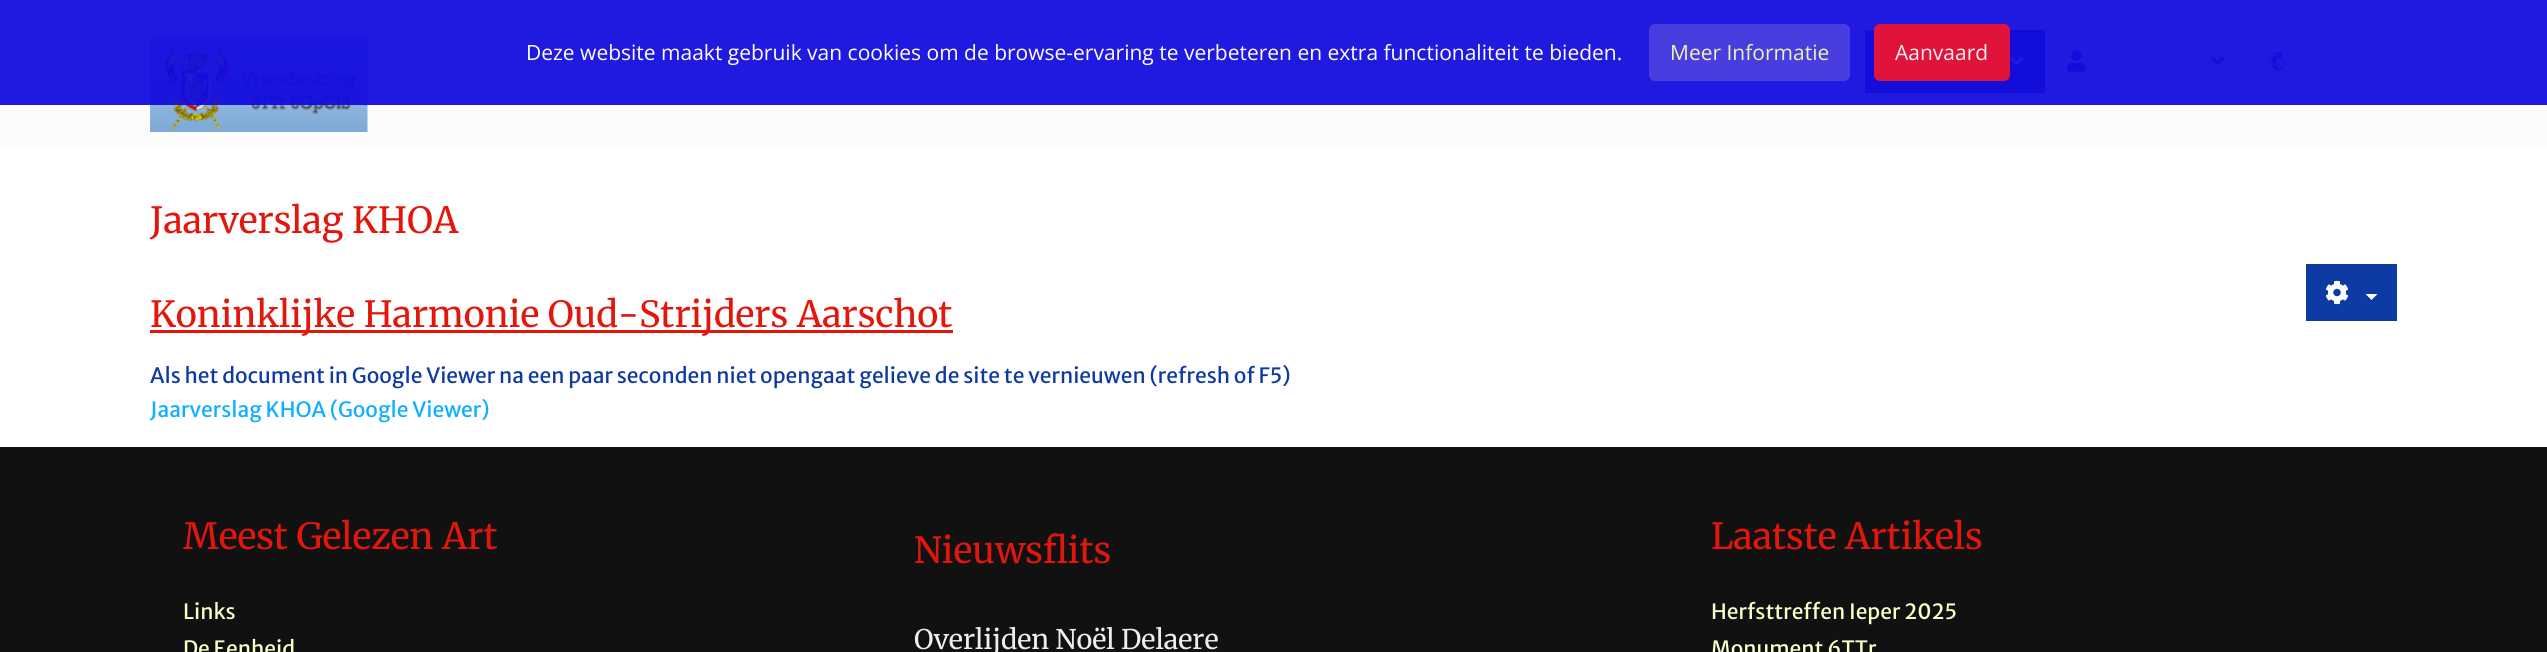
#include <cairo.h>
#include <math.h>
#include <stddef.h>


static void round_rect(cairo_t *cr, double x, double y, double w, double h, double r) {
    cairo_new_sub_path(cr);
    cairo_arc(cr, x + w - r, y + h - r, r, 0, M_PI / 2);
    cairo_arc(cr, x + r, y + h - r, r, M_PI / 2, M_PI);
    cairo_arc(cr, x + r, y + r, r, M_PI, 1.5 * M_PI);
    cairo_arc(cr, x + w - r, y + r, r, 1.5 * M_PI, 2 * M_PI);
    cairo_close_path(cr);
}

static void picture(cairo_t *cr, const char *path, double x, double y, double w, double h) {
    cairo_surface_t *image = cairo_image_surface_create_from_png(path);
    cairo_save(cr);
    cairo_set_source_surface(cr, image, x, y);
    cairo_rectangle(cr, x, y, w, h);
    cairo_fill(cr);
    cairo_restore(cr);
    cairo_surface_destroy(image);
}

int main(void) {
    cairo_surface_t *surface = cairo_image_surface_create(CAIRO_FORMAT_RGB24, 2547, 652);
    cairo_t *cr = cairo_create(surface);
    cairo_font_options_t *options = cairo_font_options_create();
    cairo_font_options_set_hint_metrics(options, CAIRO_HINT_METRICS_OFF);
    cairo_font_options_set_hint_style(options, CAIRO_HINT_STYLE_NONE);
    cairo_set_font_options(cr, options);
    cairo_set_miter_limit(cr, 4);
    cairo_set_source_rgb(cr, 1, 1, 1);
    cairo_paint(cr);
    cairo_set_source_rgb(cr, 0.988, 0.988, 0.988);
    cairo_rectangle(cr, 0, 0, 2547, 149);
    cairo_fill(cr);
    picture(cr, "img1.png", 150, 37, 218, 95);
    picture(cr, "img2.png", 1749, 51, 24, 20);
    cairo_set_source_rgb(cr, 0.051, 0.227, 0.639);
    cairo_rectangle(cr, 1865, 30, 180, 63);
    cairo_fill(cr);
    picture(cr, "img3.png", 1885, 50, 17, 22);
    picture(cr, "img4.png", 2010, 56, 14, 10);
    picture(cr, "img5.png", 2067, 50, 19, 22);
    picture(cr, "img6.png", 2211, 56, 14, 10);
    picture(cr, "img7.png", 2268, 51, 18, 20);
    cairo_set_source_rgba(cr, 0.071, 0.043, 0.871, 0.94);
    cairo_rectangle(cr, 0, 0, 2547, 105);
    cairo_fill(cr);
    cairo_select_font_face(cr, "Open Sans", CAIRO_FONT_SLANT_NORMAL, CAIRO_FONT_WEIGHT_NORMAL);
    cairo_set_font_size(cr, 21);
    cairo_set_source_rgb(cr, 1, 1, 1);
    cairo_move_to(cr, 526, 60);
    cairo_show_text(cr, "Deze website maakt gebruik van cookies om de browse-ervaring te verbeteren en extra functionaliteit te bieden.");
    cairo_set_source_rgba(cr, 0.294, 0.251, 0.871, 0.94);
    round_rect(cr, 1649, 24, 201, 57, 6);
    cairo_fill(cr);
    cairo_set_source_rgb(cr, 0.929, 0.953, 0.714);
    cairo_move_to(cr, 1670, 60);
    cairo_show_text(cr, "Meer Informatie");
    cairo_set_source_rgba(cr, 0.929, 0.075, 0.188, 0.94);
    round_rect(cr, 1874, 24, 136, 57, 6);
    cairo_fill(cr);
    cairo_set_source_rgb(cr, 0.992, 0.945, 0.953);
    cairo_move_to(cr, 1895, 60);
    cairo_show_text(cr, "Aanvaard");
    cairo_select_font_face(cr, "Merriweather Light", CAIRO_FONT_SLANT_NORMAL, CAIRO_FONT_WEIGHT_NORMAL);
    cairo_set_font_size(cr, 36);
    cairo_set_source_rgb(cr, 0.89, 0.086, 0.047);
    cairo_move_to(cr, 150, 233);
    cairo_show_text(cr, "Jaarverslag KHOA");
    cairo_rectangle(cr, 150, 330, 803, 3);
    cairo_fill(cr);
    cairo_move_to(cr, 150, 327);
    cairo_show_text(cr, "Koninklijke Harmonie Oud-Strijders Aarschot");
    cairo_select_font_face(cr, "Merriweather Sans", CAIRO_FONT_SLANT_NORMAL, CAIRO_FONT_WEIGHT_NORMAL);
    cairo_set_font_size(cr, 21);
    cairo_set_source_rgb(cr, 0.051, 0.227, 0.639);
    cairo_move_to(cr, 150, 383);
    cairo_show_text(cr, "Als het document in Google Viewer na een paar seconden niet opengaat gelieve de site te vernieuwen (refresh of F5)");
    cairo_set_source_rgb(cr, 0.059, 0.686, 1);
    cairo_move_to(cr, 150, 417);
    cairo_show_text(cr, "Jaarverslag KHOA (Google Viewer)");
    cairo_set_source_rgb(cr, 0.051, 0.227, 0.639);
    cairo_rectangle(cr, 2306, 264, 91, 57);
    cairo_fill(cr);
    picture(cr, "img8.png", 2325, 280, 24, 25);
    cairo_set_source_rgb(cr, 1, 1, 1);
    cairo_new_path(cr);
    cairo_move_to(cr, 2365.5, 294);
    cairo_line_to(cr, 2377.5, 294);
    cairo_line_to(cr, 2371.5, 300);
    cairo_close_path(cr);
    cairo_fill(cr);
    cairo_set_source_rgb(cr, 0.067, 0.067, 0.067);
    cairo_rectangle(cr, 0, 447, 2547, 205);
    cairo_fill(cr);
    cairo_select_font_face(cr, "Merriweather Light", CAIRO_FONT_SLANT_NORMAL, CAIRO_FONT_WEIGHT_NORMAL);
    cairo_set_font_size(cr, 36);
    cairo_set_source_rgb(cr, 0.89, 0.086, 0.047);
    cairo_move_to(cr, 183, 549);
    cairo_show_text(cr, "Meest Gelezen Art");
    cairo_select_font_face(cr, "Merriweather Sans", CAIRO_FONT_SLANT_NORMAL, CAIRO_FONT_WEIGHT_NORMAL);
    cairo_set_font_size(cr, 21);
    cairo_set_source_rgb(cr, 0.973, 1, 0.78);
    cairo_move_to(cr, 183, 619);
    cairo_show_text(cr, "Links");
    cairo_move_to(cr, 183, 656);
    cairo_show_text(cr, "De Eenheid");
    cairo_select_font_face(cr, "Merriweather Light", CAIRO_FONT_SLANT_NORMAL, CAIRO_FONT_WEIGHT_NORMAL);
    cairo_set_font_size(cr, 36);
    cairo_set_source_rgb(cr, 0.89, 0.086, 0.047);
    cairo_move_to(cr, 914, 563);
    cairo_show_text(cr, "Nieuwsflits");
    cairo_set_font_size(cr, 27);
    cairo_set_source_rgb(cr, 0.933, 0.933, 0.933);
    cairo_move_to(cr, 914, 649);
    cairo_show_text(cr, "Overlijden Noël Delaere");
    cairo_set_font_size(cr, 36);
    cairo_set_source_rgb(cr, 0.89, 0.086, 0.047);
    cairo_move_to(cr, 1711, 549);
    cairo_show_text(cr, "Laatste Artikels");
    cairo_select_font_face(cr, "Merriweather Sans", CAIRO_FONT_SLANT_NORMAL, CAIRO_FONT_WEIGHT_NORMAL);
    cairo_set_font_size(cr, 21);
    cairo_set_source_rgb(cr, 0.973, 1, 0.78);
    cairo_move_to(cr, 1711, 619);
    cairo_show_text(cr, "Herfsttreffen Ieper 2025");
    cairo_move_to(cr, 1711, 656);
    cairo_show_text(cr, "Monument 6TTr");
    cairo_surface_write_to_png(surface, "page.png");
    cairo_font_options_destroy(options);
    cairo_destroy(cr);
    cairo_surface_destroy(surface);
    return 0;
}
